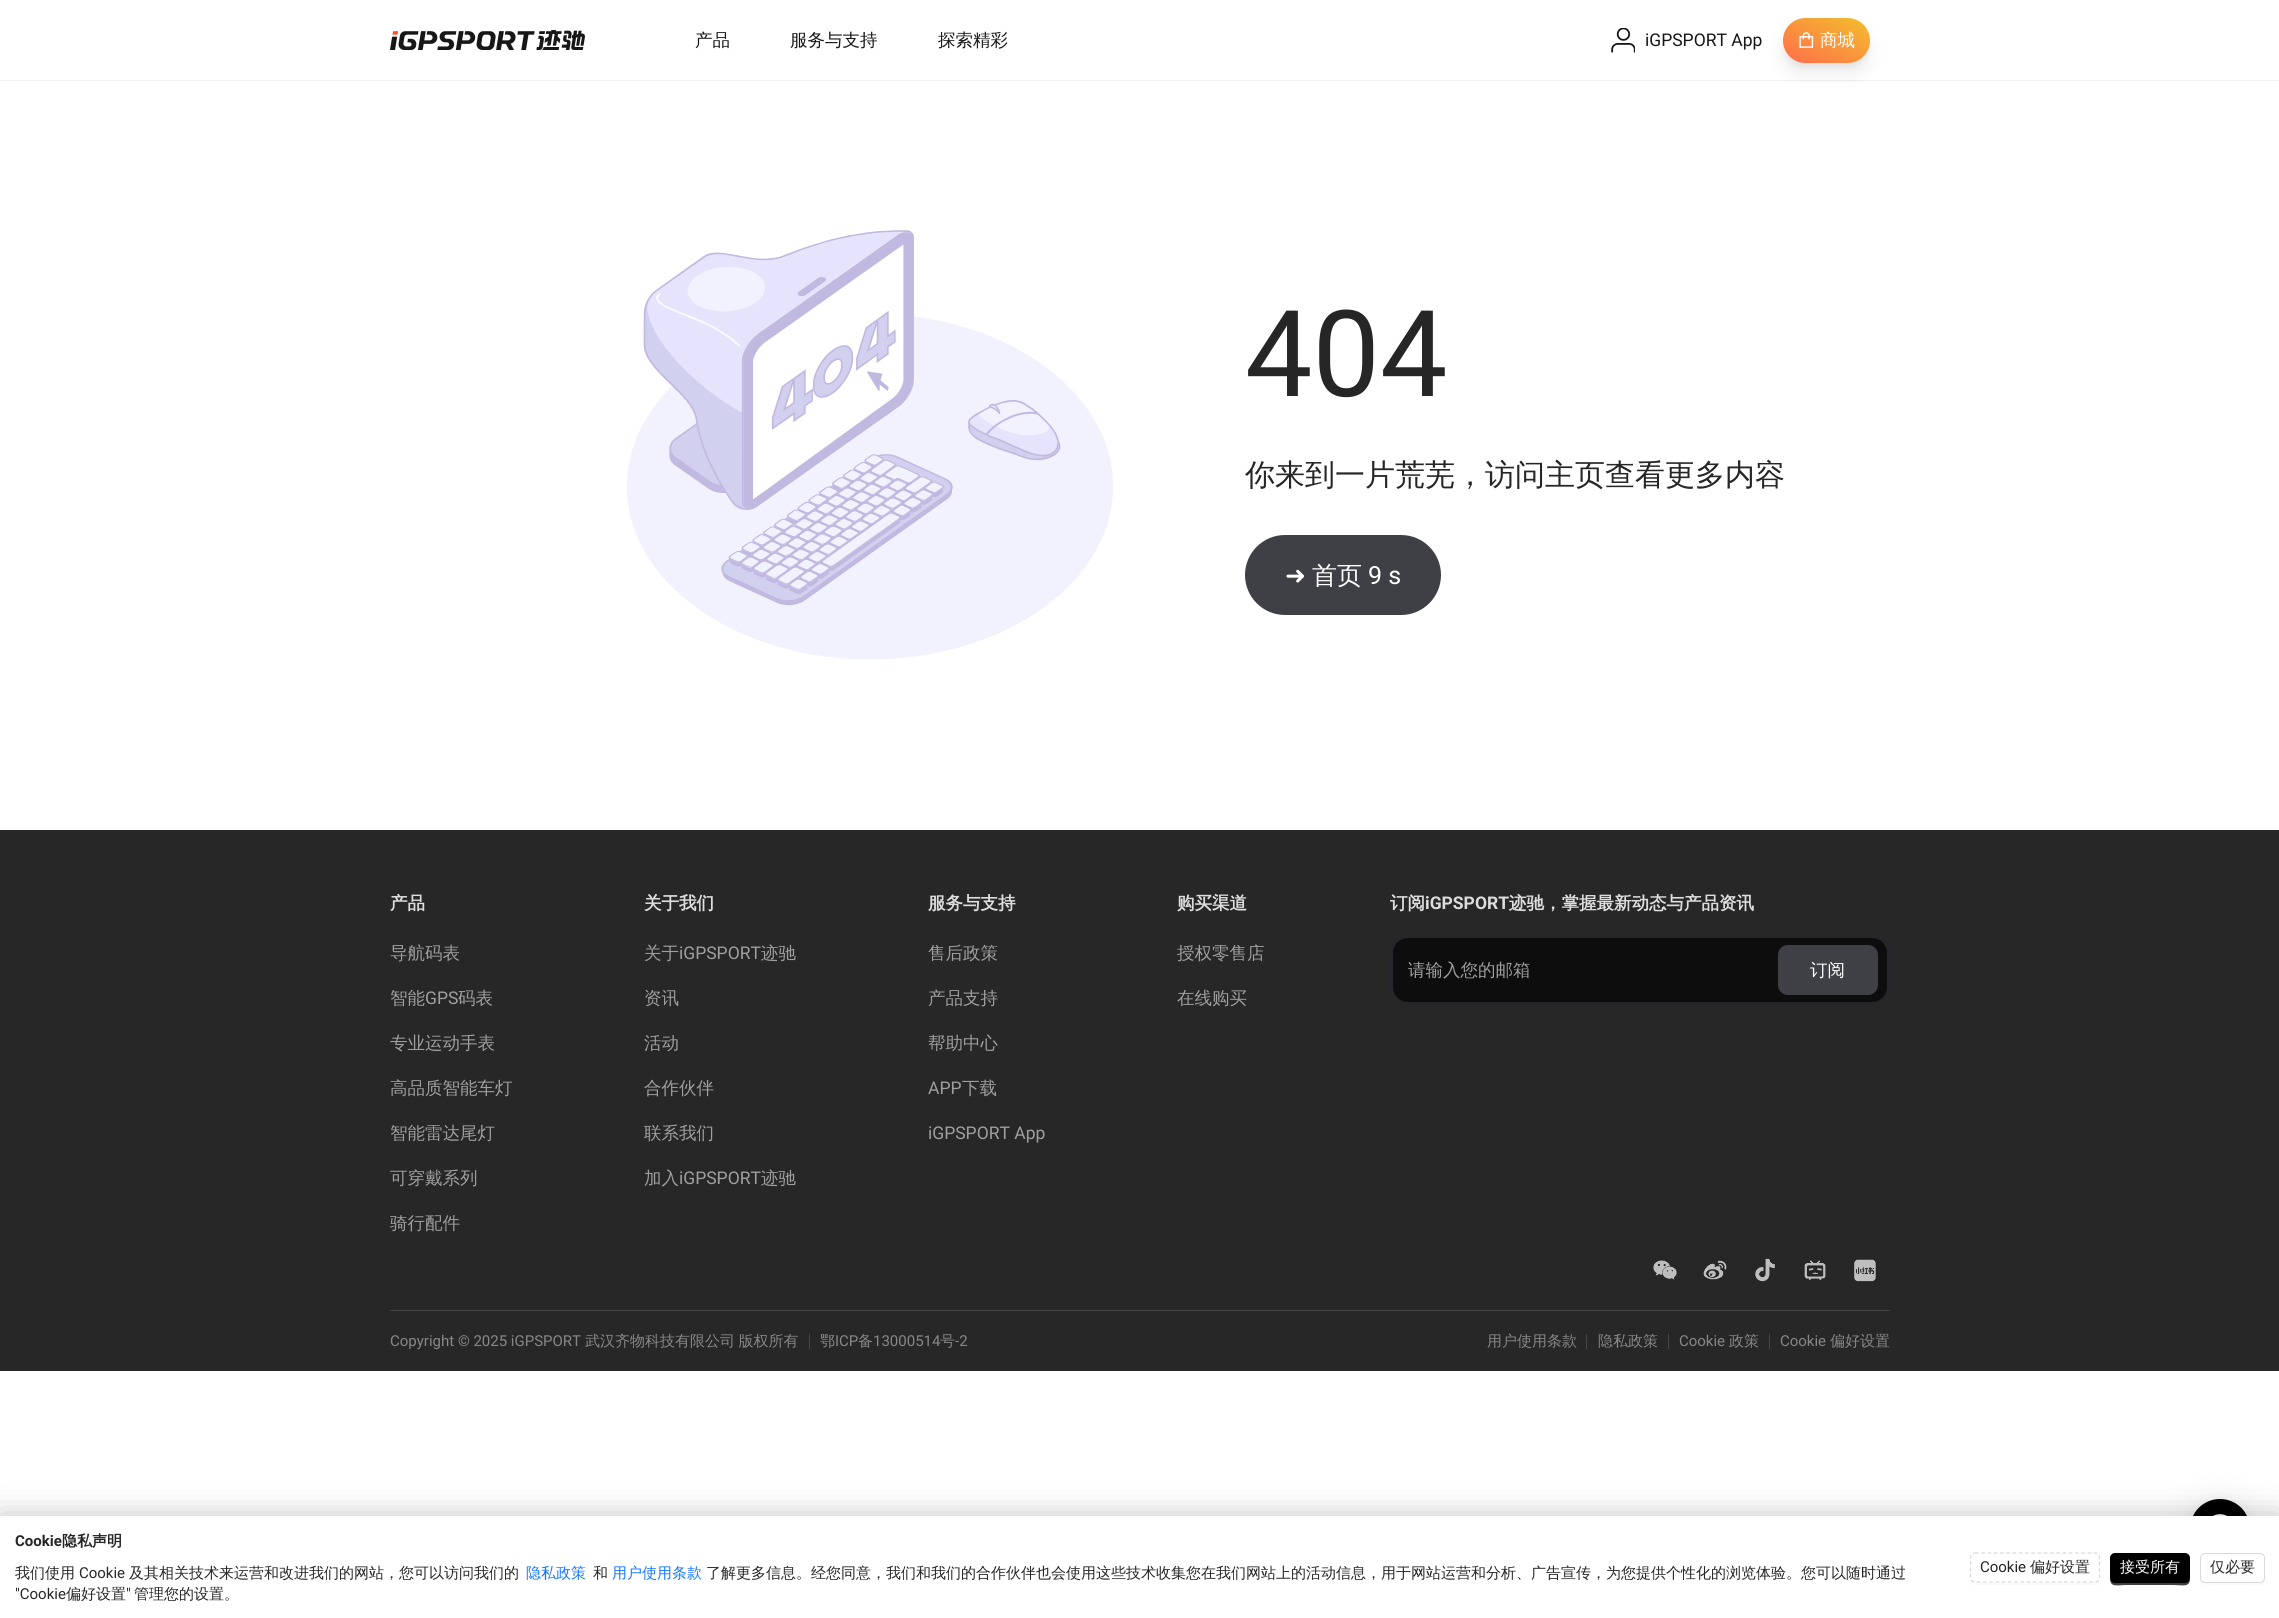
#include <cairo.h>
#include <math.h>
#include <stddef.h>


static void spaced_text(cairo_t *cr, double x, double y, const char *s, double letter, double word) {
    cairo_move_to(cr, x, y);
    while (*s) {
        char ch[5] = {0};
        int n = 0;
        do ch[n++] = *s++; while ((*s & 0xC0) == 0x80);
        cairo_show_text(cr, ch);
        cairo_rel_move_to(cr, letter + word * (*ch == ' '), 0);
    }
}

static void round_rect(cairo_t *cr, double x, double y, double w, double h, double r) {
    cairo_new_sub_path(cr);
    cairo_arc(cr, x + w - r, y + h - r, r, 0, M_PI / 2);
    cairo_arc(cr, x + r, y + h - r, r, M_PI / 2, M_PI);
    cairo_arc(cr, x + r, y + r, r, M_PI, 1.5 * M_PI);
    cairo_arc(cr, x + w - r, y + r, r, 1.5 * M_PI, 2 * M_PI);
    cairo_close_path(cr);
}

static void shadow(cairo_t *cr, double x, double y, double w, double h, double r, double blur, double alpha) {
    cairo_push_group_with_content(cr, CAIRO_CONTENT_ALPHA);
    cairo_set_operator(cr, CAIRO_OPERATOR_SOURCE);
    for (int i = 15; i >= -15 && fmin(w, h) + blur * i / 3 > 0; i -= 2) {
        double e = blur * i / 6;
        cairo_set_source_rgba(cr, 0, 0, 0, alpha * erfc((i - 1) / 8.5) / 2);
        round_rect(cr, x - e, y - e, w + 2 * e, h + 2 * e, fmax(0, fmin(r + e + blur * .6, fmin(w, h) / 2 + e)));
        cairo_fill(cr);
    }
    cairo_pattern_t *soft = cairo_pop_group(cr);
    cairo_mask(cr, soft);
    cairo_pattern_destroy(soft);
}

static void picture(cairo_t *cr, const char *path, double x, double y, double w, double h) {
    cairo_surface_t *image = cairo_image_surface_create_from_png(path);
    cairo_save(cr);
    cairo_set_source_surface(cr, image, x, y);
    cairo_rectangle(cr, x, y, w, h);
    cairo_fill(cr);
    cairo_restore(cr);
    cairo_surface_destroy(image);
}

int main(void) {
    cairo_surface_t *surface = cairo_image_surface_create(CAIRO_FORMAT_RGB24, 2279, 1618);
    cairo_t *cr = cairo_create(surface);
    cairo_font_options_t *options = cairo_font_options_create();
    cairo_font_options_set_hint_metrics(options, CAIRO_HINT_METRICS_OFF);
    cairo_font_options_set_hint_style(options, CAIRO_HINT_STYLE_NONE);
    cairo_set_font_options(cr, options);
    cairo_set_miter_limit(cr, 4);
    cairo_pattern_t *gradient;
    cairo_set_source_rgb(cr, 1, 1, 1);
    cairo_paint(cr);
    cairo_set_source_rgb(cr, 0.941, 0.941, 0.941);
    cairo_rectangle(cr, 0, 80, 2279, 1);
    cairo_fill(cr);
    picture(cr, "img1.png", 390, 30, 195, 20);
    cairo_select_font_face(cr, "WenQuanYi Zen Hei Medium", CAIRO_FONT_SLANT_NORMAL, CAIRO_FONT_WEIGHT_NORMAL);
    cairo_set_font_size(cr, 17.5);
    cairo_set_source_rgb(cr, 0.09, 0.09, 0.09);
    cairo_move_to(cr, 695, 46);
    cairo_show_text(cr, "产品");
    cairo_move_to(cr, 790, 46);
    cairo_show_text(cr, "服务与支持");
    cairo_move_to(cr, 938, 46);
    cairo_show_text(cr, "探索精彩");
    picture(cr, "img2.png", 1611, 28, 24, 25);
    cairo_select_font_face(cr, "Roboto", CAIRO_FONT_SLANT_NORMAL, CAIRO_FONT_WEIGHT_NORMAL);
    cairo_move_to(cr, 1645, 46);
    cairo_show_text(cr, "iGPSPORT App");
    cairo_set_source_rgb(cr, 0, 0, 0);
    shadow(cr, 1788, 28, 77, 35, 17.5, 4, 0.1);
    shadow(cr, 1786, 34, 80, 37, 18.5, 9.5, 0.1);
    gradient = cairo_pattern_create_linear(1808, 76, 1845, 4.4);
    cairo_pattern_add_color_stop_rgba(gradient, 0, 1, 0.431, 0.29, 1);
    cairo_pattern_add_color_stop_rgba(gradient, 1, 0.949, 0.749, 0.176, 1);
    cairo_set_source(cr, gradient);
    cairo_pattern_destroy(gradient);
    round_rect(cr, 1783, 18, 87, 45, 22.5);
    cairo_fill(cr);
    picture(cr, "img3.png", 1799, 32, 15, 16);
    cairo_select_font_face(cr, "WenQuanYi Zen Hei Medium", CAIRO_FONT_SLANT_NORMAL, CAIRO_FONT_WEIGHT_NORMAL);
    cairo_set_source_rgb(cr, 1, 1, 1);
    cairo_move_to(cr, 1820, 46);
    cairo_show_text(cr, "商城");
    picture(cr, "img4.png", 627, 230, 486, 429);
    cairo_select_font_face(cr, "Roboto", CAIRO_FONT_SLANT_NORMAL, CAIRO_FONT_WEIGHT_NORMAL);
    cairo_set_font_size(cr, 120);
    cairo_set_source_rgb(cr, 0.149, 0.149, 0.149);
    cairo_move_to(cr, 1245, 396);
    cairo_show_text(cr, "404");
    cairo_select_font_face(cr, "WenQuanYi Zen Hei Medium", CAIRO_FONT_SLANT_NORMAL, CAIRO_FONT_WEIGHT_NORMAL);
    cairo_set_font_size(cr, 30);
    cairo_move_to(cr, 1245, 485);
    cairo_show_text(cr, "你来到一片荒芜，访问主页查看更多内容");
    cairo_set_source_rgb(cr, 0.247, 0.247, 0.275);
    round_rect(cr, 1245, 535, 196, 80, 40);
    cairo_fill(cr);
    cairo_select_font_face(cr, "DejaVu Sans", CAIRO_FONT_SLANT_NORMAL, CAIRO_FONT_WEIGHT_NORMAL);
    cairo_set_font_size(cr, 25);
    cairo_set_source_rgb(cr, 1, 1, 1);
    cairo_move_to(cr, 1285, 584);
    cairo_show_text(cr, "➜");
    cairo_select_font_face(cr, "WenQuanYi Zen Hei Medium", CAIRO_FONT_SLANT_NORMAL, CAIRO_FONT_WEIGHT_NORMAL);
    cairo_move_to(cr, 1312, 584);
    cairo_show_text(cr, "首页");
    cairo_select_font_face(cr, "Roboto", CAIRO_FONT_SLANT_NORMAL, CAIRO_FONT_WEIGHT_NORMAL);
    cairo_move_to(cr, 1368, 584);
    cairo_show_text(cr, "9 s");
    cairo_set_source_rgb(cr, 0.153, 0.153, 0.153);
    cairo_rectangle(cr, 0, 830, 2279, 541);
    cairo_fill(cr);
    cairo_select_font_face(cr, "WenQuanYi Zen Hei", CAIRO_FONT_SLANT_NORMAL, CAIRO_FONT_WEIGHT_BOLD);
    cairo_set_font_size(cr, 17.5);
    cairo_set_source_rgb(cr, 0.867, 0.867, 0.867);
    cairo_move_to(cr, 390, 909);
    cairo_show_text(cr, "产品");
    cairo_select_font_face(cr, "WenQuanYi Zen Hei Medium", CAIRO_FONT_SLANT_NORMAL, CAIRO_FONT_WEIGHT_NORMAL);
    cairo_set_source_rgb(cr, 0.624, 0.624, 0.624);
    cairo_move_to(cr, 390, 959);
    cairo_show_text(cr, "导航码表");
    cairo_move_to(cr, 390, 1004);
    cairo_show_text(cr, "智能");
    cairo_select_font_face(cr, "Roboto", CAIRO_FONT_SLANT_NORMAL, CAIRO_FONT_WEIGHT_NORMAL);
    cairo_move_to(cr, 425, 1004);
    cairo_show_text(cr, "GPS");
    cairo_select_font_face(cr, "WenQuanYi Zen Hei Medium", CAIRO_FONT_SLANT_NORMAL, CAIRO_FONT_WEIGHT_NORMAL);
    cairo_move_to(cr, 458, 1004);
    cairo_show_text(cr, "码表");
    cairo_move_to(cr, 390, 1049);
    cairo_show_text(cr, "专业运动手表");
    cairo_move_to(cr, 390, 1094);
    cairo_show_text(cr, "高品质智能车灯");
    cairo_move_to(cr, 390, 1139);
    cairo_show_text(cr, "智能雷达尾灯");
    cairo_move_to(cr, 390, 1184);
    cairo_show_text(cr, "可穿戴系列");
    cairo_move_to(cr, 390, 1229);
    cairo_show_text(cr, "骑行配件");
    cairo_select_font_face(cr, "WenQuanYi Zen Hei", CAIRO_FONT_SLANT_NORMAL, CAIRO_FONT_WEIGHT_BOLD);
    cairo_set_source_rgb(cr, 0.867, 0.867, 0.867);
    cairo_move_to(cr, 644, 909);
    cairo_show_text(cr, "关于我们");
    cairo_select_font_face(cr, "WenQuanYi Zen Hei Medium", CAIRO_FONT_SLANT_NORMAL, CAIRO_FONT_WEIGHT_NORMAL);
    cairo_set_source_rgb(cr, 0.624, 0.624, 0.624);
    cairo_move_to(cr, 644, 959);
    cairo_show_text(cr, "关于");
    cairo_select_font_face(cr, "Roboto", CAIRO_FONT_SLANT_NORMAL, CAIRO_FONT_WEIGHT_NORMAL);
    cairo_move_to(cr, 679, 959);
    cairo_show_text(cr, "iGPSPORT");
    cairo_select_font_face(cr, "WenQuanYi Zen Hei Medium", CAIRO_FONT_SLANT_NORMAL, CAIRO_FONT_WEIGHT_NORMAL);
    cairo_move_to(cr, 761, 959);
    cairo_show_text(cr, "迹驰");
    cairo_move_to(cr, 644, 1004);
    cairo_show_text(cr, "资讯");
    cairo_move_to(cr, 644, 1049);
    cairo_show_text(cr, "活动");
    cairo_move_to(cr, 644, 1094);
    cairo_show_text(cr, "合作伙伴");
    cairo_move_to(cr, 644, 1139);
    cairo_show_text(cr, "联系我们");
    cairo_move_to(cr, 644, 1184);
    cairo_show_text(cr, "加入");
    cairo_select_font_face(cr, "Roboto", CAIRO_FONT_SLANT_NORMAL, CAIRO_FONT_WEIGHT_NORMAL);
    cairo_move_to(cr, 679, 1184);
    cairo_show_text(cr, "iGPSPORT");
    cairo_select_font_face(cr, "WenQuanYi Zen Hei Medium", CAIRO_FONT_SLANT_NORMAL, CAIRO_FONT_WEIGHT_NORMAL);
    cairo_move_to(cr, 761, 1184);
    cairo_show_text(cr, "迹驰");
    cairo_select_font_face(cr, "WenQuanYi Zen Hei", CAIRO_FONT_SLANT_NORMAL, CAIRO_FONT_WEIGHT_BOLD);
    cairo_set_source_rgb(cr, 0.867, 0.867, 0.867);
    cairo_move_to(cr, 928, 909);
    cairo_show_text(cr, "服务与支持");
    cairo_select_font_face(cr, "WenQuanYi Zen Hei Medium", CAIRO_FONT_SLANT_NORMAL, CAIRO_FONT_WEIGHT_NORMAL);
    cairo_set_source_rgb(cr, 0.624, 0.624, 0.624);
    cairo_move_to(cr, 928, 959);
    cairo_show_text(cr, "售后政策");
    cairo_move_to(cr, 928, 1004);
    cairo_show_text(cr, "产品支持");
    cairo_move_to(cr, 928, 1049);
    cairo_show_text(cr, "帮助中心");
    cairo_select_font_face(cr, "Roboto", CAIRO_FONT_SLANT_NORMAL, CAIRO_FONT_WEIGHT_NORMAL);
    cairo_move_to(cr, 928, 1094);
    cairo_show_text(cr, "APP");
    cairo_select_font_face(cr, "WenQuanYi Zen Hei Medium", CAIRO_FONT_SLANT_NORMAL, CAIRO_FONT_WEIGHT_NORMAL);
    cairo_move_to(cr, 962, 1094);
    cairo_show_text(cr, "下载");
    cairo_select_font_face(cr, "Roboto", CAIRO_FONT_SLANT_NORMAL, CAIRO_FONT_WEIGHT_NORMAL);
    cairo_move_to(cr, 928, 1139);
    cairo_show_text(cr, "iGPSPORT App");
    cairo_select_font_face(cr, "WenQuanYi Zen Hei", CAIRO_FONT_SLANT_NORMAL, CAIRO_FONT_WEIGHT_BOLD);
    cairo_set_source_rgb(cr, 0.867, 0.867, 0.867);
    cairo_move_to(cr, 1177, 909);
    cairo_show_text(cr, "购买渠道");
    cairo_select_font_face(cr, "WenQuanYi Zen Hei Medium", CAIRO_FONT_SLANT_NORMAL, CAIRO_FONT_WEIGHT_NORMAL);
    cairo_set_source_rgb(cr, 0.624, 0.624, 0.624);
    cairo_move_to(cr, 1177, 959);
    cairo_show_text(cr, "授权零售店");
    cairo_move_to(cr, 1177, 1004);
    cairo_show_text(cr, "在线购买");
    cairo_select_font_face(cr, "WenQuanYi Zen Hei", CAIRO_FONT_SLANT_NORMAL, CAIRO_FONT_WEIGHT_BOLD);
    cairo_set_source_rgb(cr, 0.867, 0.867, 0.867);
    cairo_move_to(cr, 1390, 909);
    cairo_show_text(cr, "订阅");
    cairo_select_font_face(cr, "Roboto", CAIRO_FONT_SLANT_NORMAL, CAIRO_FONT_WEIGHT_BOLD);
    cairo_move_to(cr, 1425, 909);
    cairo_show_text(cr, "iGPSPORT");
    cairo_select_font_face(cr, "WenQuanYi Zen Hei", CAIRO_FONT_SLANT_NORMAL, CAIRO_FONT_WEIGHT_BOLD);
    cairo_move_to(cr, 1509, 909);
    cairo_show_text(cr, "迹驰，掌握最新动态与产品资讯");
    cairo_set_source_rgb(cr, 0.051, 0.051, 0.055);
    round_rect(cr, 1391.5, 936.5, 497, 67, 16.5);
    cairo_fill_preserve(cr);
    cairo_set_source_rgb(cr, 0.149, 0.149, 0.165);
    cairo_set_line_width(cr, 3);
    cairo_stroke(cr);
    cairo_select_font_face(cr, "WenQuanYi Zen Hei Medium", CAIRO_FONT_SLANT_NORMAL, CAIRO_FONT_WEIGHT_NORMAL);
    cairo_set_source_rgb(cr, 0.624, 0.624, 0.624);
    cairo_move_to(cr, 1408, 976);
    cairo_show_text(cr, "请输入您的邮箱");
    cairo_set_source_rgb(cr, 0.247, 0.247, 0.275);
    round_rect(cr, 1778, 945, 100, 50, 10);
    cairo_fill(cr);
    cairo_set_source_rgb(cr, 1, 1, 1);
    cairo_move_to(cr, 1810, 976);
    cairo_show_text(cr, "订阅");
    picture(cr, "img5.png", 1653, 1260, 24, 20);
    picture(cr, "img6.png", 1703, 1260, 24, 20);
    picture(cr, "img7.png", 1755, 1258, 20, 24);
    picture(cr, "img8.png", 1804, 1260, 22, 20);
    picture(cr, "img9.png", 1854, 1259, 22, 23);
    cairo_set_source_rgb(cr, 0.278, 0.278, 0.278);
    cairo_rectangle(cr, 390, 1310, 1500, 1);
    cairo_fill(cr);
    cairo_select_font_face(cr, "Roboto", CAIRO_FONT_SLANT_NORMAL, CAIRO_FONT_WEIGHT_NORMAL);
    cairo_set_font_size(cr, 15);
    cairo_set_source_rgb(cr, 0.529, 0.529, 0.529);
    cairo_move_to(cr, 390, 1346);
    cairo_show_text(cr, "Copyright © 2025 iGPSPORT");
    cairo_select_font_face(cr, "WenQuanYi Zen Hei Medium", CAIRO_FONT_SLANT_NORMAL, CAIRO_FONT_WEIGHT_NORMAL);
    spaced_text(cr, 585, 1346, "武汉齐物科技有限公司 版权所有", 0, -1);
    cairo_set_source_rgb(cr, 0.278, 0.278, 0.278);
    cairo_rectangle(cr, 809, 1334, 1, 15);
    cairo_fill(cr);
    cairo_set_source_rgb(cr, 0.529, 0.529, 0.529);
    cairo_move_to(cr, 820, 1346);
    cairo_show_text(cr, "鄂");
    cairo_select_font_face(cr, "Roboto", CAIRO_FONT_SLANT_NORMAL, CAIRO_FONT_WEIGHT_NORMAL);
    cairo_move_to(cr, 835, 1346);
    cairo_show_text(cr, "ICP");
    cairo_select_font_face(cr, "WenQuanYi Zen Hei Medium", CAIRO_FONT_SLANT_NORMAL, CAIRO_FONT_WEIGHT_NORMAL);
    cairo_move_to(cr, 858, 1346);
    cairo_show_text(cr, "备");
    cairo_select_font_face(cr, "Roboto", CAIRO_FONT_SLANT_NORMAL, CAIRO_FONT_WEIGHT_NORMAL);
    cairo_move_to(cr, 873, 1346);
    cairo_show_text(cr, "13000514");
    cairo_select_font_face(cr, "WenQuanYi Zen Hei Medium", CAIRO_FONT_SLANT_NORMAL, CAIRO_FONT_WEIGHT_NORMAL);
    cairo_move_to(cr, 940, 1346);
    cairo_show_text(cr, "号");
    cairo_select_font_face(cr, "Roboto", CAIRO_FONT_SLANT_NORMAL, CAIRO_FONT_WEIGHT_NORMAL);
    cairo_move_to(cr, 955, 1346);
    cairo_show_text(cr, "-2");
    cairo_select_font_face(cr, "WenQuanYi Zen Hei Medium", CAIRO_FONT_SLANT_NORMAL, CAIRO_FONT_WEIGHT_NORMAL);
    cairo_move_to(cr, 1487, 1346);
    cairo_show_text(cr, "用户使用条款");
    cairo_set_source_rgb(cr, 0.278, 0.278, 0.278);
    cairo_rectangle(cr, 1586, 1334, 1, 15);
    cairo_fill(cr);
    cairo_set_source_rgb(cr, 0.529, 0.529, 0.529);
    cairo_move_to(cr, 1598, 1346);
    cairo_show_text(cr, "隐私政策");
    cairo_set_source_rgb(cr, 0.278, 0.278, 0.278);
    cairo_rectangle(cr, 1668, 1334, 1, 15);
    cairo_fill(cr);
    cairo_select_font_face(cr, "Roboto", CAIRO_FONT_SLANT_NORMAL, CAIRO_FONT_WEIGHT_NORMAL);
    cairo_set_source_rgb(cr, 0.529, 0.529, 0.529);
    cairo_move_to(cr, 1679, 1346);
    cairo_show_text(cr, "Cookie");
    cairo_select_font_face(cr, "WenQuanYi Zen Hei Medium", CAIRO_FONT_SLANT_NORMAL, CAIRO_FONT_WEIGHT_NORMAL);
    cairo_move_to(cr, 1729, 1346);
    cairo_show_text(cr, "政策");
    cairo_set_source_rgb(cr, 0.278, 0.278, 0.278);
    cairo_rectangle(cr, 1769, 1334, 1, 15);
    cairo_fill(cr);
    cairo_select_font_face(cr, "Roboto", CAIRO_FONT_SLANT_NORMAL, CAIRO_FONT_WEIGHT_NORMAL);
    cairo_set_source_rgb(cr, 0.529, 0.529, 0.529);
    cairo_move_to(cr, 1780, 1346);
    cairo_show_text(cr, "Cookie");
    cairo_select_font_face(cr, "WenQuanYi Zen Hei Medium", CAIRO_FONT_SLANT_NORMAL, CAIRO_FONT_WEIGHT_NORMAL);
    cairo_move_to(cr, 1830, 1346);
    cairo_show_text(cr, "偏好设置");
    cairo_set_source_rgb(cr, 0, 0, 0);
    shadow(cr, 2180, 1500, 80, 80, 40, 17.5, 0.05);
    shadow(cr, 2190, 1506, 60, 60, 30, 10, 0.08);
    cairo_set_source_rgb(cr, 0, 0, 0);
    cairo_arc(cr, 2220, 1529, 30, 0, 2 * M_PI);
    cairo_fill(cr);
    picture(cr, "img10.png", 2213, 1514, 14, 2);
    cairo_set_source_rgb(cr, 0.008, 0.008, 0.012);
    shadow(cr, 0, 1519, 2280, 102, 0, 16.5, 0.28);
    cairo_set_source_rgb(cr, 1, 1, 1);
    cairo_rectangle(cr, 0, 1516, 2279, 102);
    cairo_fill(cr);
    cairo_select_font_face(cr, "Roboto", CAIRO_FONT_SLANT_NORMAL, CAIRO_FONT_WEIGHT_BOLD);
    cairo_set_source_rgb(cr, 0.149, 0.149, 0.149);
    cairo_move_to(cr, 15, 1546);
    cairo_show_text(cr, "Cookie");
    cairo_select_font_face(cr, "WenQuanYi Zen Hei", CAIRO_FONT_SLANT_NORMAL, CAIRO_FONT_WEIGHT_BOLD);
    cairo_move_to(cr, 62, 1546);
    cairo_show_text(cr, "隐私声明");
    cairo_select_font_face(cr, "WenQuanYi Zen Hei Medium", CAIRO_FONT_SLANT_NORMAL, CAIRO_FONT_WEIGHT_NORMAL);
    cairo_move_to(cr, 15, 1578);
    cairo_show_text(cr, "我们使用");
    cairo_select_font_face(cr, "Roboto", CAIRO_FONT_SLANT_NORMAL, CAIRO_FONT_WEIGHT_NORMAL);
    cairo_move_to(cr, 79, 1578);
    cairo_show_text(cr, "Cookie");
    cairo_select_font_face(cr, "WenQuanYi Zen Hei Medium", CAIRO_FONT_SLANT_NORMAL, CAIRO_FONT_WEIGHT_NORMAL);
    cairo_move_to(cr, 129, 1578);
    cairo_show_text(cr, "及其相关技术来运营和改进我们的网站，您可以访问我们的");
    cairo_set_source_rgb(cr, 0.086, 0.467, 1);
    cairo_move_to(cr, 526, 1578);
    cairo_show_text(cr, "隐私政策");
    cairo_set_source_rgb(cr, 0.149, 0.149, 0.149);
    cairo_move_to(cr, 593, 1578);
    cairo_show_text(cr, "和");
    cairo_set_source_rgb(cr, 0.086, 0.467, 1);
    cairo_move_to(cr, 612, 1578);
    cairo_show_text(cr, "用户使用条款");
    cairo_set_source_rgb(cr, 0.149, 0.149, 0.149);
    cairo_move_to(cr, 706, 1578);
    cairo_show_text(cr, "了解更多信息。经您同意，我们和我们的合作伙伴也会使用这些技术收集您在我们网站上的活动信息，用于网站运营和分析、广告宣传，为您提供个性化的浏览体验。您可以随时通过");
    cairo_select_font_face(cr, "Roboto", CAIRO_FONT_SLANT_NORMAL, CAIRO_FONT_WEIGHT_NORMAL);
    cairo_move_to(cr, 15, 1599);
    cairo_show_text(cr, "\"Cookie");
    cairo_select_font_face(cr, "WenQuanYi Zen Hei Medium", CAIRO_FONT_SLANT_NORMAL, CAIRO_FONT_WEIGHT_NORMAL);
    cairo_move_to(cr, 66, 1599);
    cairo_show_text(cr, "偏好设置");
    cairo_select_font_face(cr, "Roboto", CAIRO_FONT_SLANT_NORMAL, CAIRO_FONT_WEIGHT_NORMAL);
    cairo_move_to(cr, 126, 1599);
    cairo_show_text(cr, "\"");
    cairo_select_font_face(cr, "WenQuanYi Zen Hei Medium", CAIRO_FONT_SLANT_NORMAL, CAIRO_FONT_WEIGHT_NORMAL);
    cairo_move_to(cr, 134, 1599);
    cairo_show_text(cr, "管理您的设置。");
    cairo_set_source_rgb(cr, 0.98, 0.98, 0.98);
    cairo_new_path(cr);
    cairo_move_to(cr, 1970, 1578);
    cairo_line_to(cr, 1970, 1580);
    cairo_curve_to(cr, 1970, 1583, 1972, 1585, 1975, 1585);
    cairo_line_to(cr, 2095, 1585);
    cairo_curve_to(cr, 2098, 1585, 2100, 1583, 2100, 1580);
    cairo_line_to(cr, 2100, 1578);
    cairo_curve_to(cr, 2100, 1580, 2098, 1582, 2095, 1582);
    cairo_line_to(cr, 1975, 1582);
    cairo_curve_to(cr, 1972, 1582, 1970, 1580, 1970, 1578);
    cairo_close_path(cr);
    cairo_fill(cr);
    cairo_set_source_rgb(cr, 1, 1, 1);
    round_rect(cr, 1970, 1553, 130, 30, 5);
    cairo_fill(cr);
    cairo_new_path(cr);
    cairo_move_to(cr, 1975, 1553);
    cairo_line_to(cr, 2095, 1553);
    cairo_curve_to(cr, 2097.5, 1553, 2099.5, 1555, 2099.5, 1557.5);
    cairo_line_to(cr, 2099.5, 1577.5);
    cairo_curve_to(cr, 2099.5, 1580, 2097.5, 1582, 2095, 1582);
    cairo_line_to(cr, 1975, 1582);
    cairo_curve_to(cr, 1972.5, 1582, 1970.5, 1580, 1970.5, 1577.5);
    cairo_line_to(cr, 1970.5, 1557.5);
    cairo_curve_to(cr, 1970.5, 1555, 1972.5, 1553, 1975, 1553);
    cairo_close_path(cr);
    cairo_set_source_rgb(cr, 0.851, 0.851, 0.851);
    cairo_set_line_width(cr, 1.2);
    cairo_set_dash(cr, (double[]){3.75, 2.5}, 2, 0);
    cairo_stroke(cr);
    cairo_select_font_face(cr, "Roboto", CAIRO_FONT_SLANT_NORMAL, CAIRO_FONT_WEIGHT_NORMAL);
    cairo_set_source_rgb(cr, 0.149, 0.149, 0.149);
    cairo_move_to(cr, 1980, 1572);
    cairo_show_text(cr, "Cookie");
    cairo_select_font_face(cr, "WenQuanYi Zen Hei Medium", CAIRO_FONT_SLANT_NORMAL, CAIRO_FONT_WEIGHT_NORMAL);
    cairo_move_to(cr, 2030, 1572);
    cairo_show_text(cr, "偏好设置");
    cairo_set_source_rgb(cr, 0.251, 0.251, 0.251);
    cairo_new_path(cr);
    cairo_move_to(cr, 2110, 1578);
    cairo_curve_to(cr, 2110, 1588, 2117, 1585, 2127, 1585);
    cairo_line_to(cr, 2173, 1585);
    cairo_curve_to(cr, 2183, 1585, 2190, 1588, 2190, 1578);
    cairo_curve_to(cr, 2190, 1580, 2188, 1582, 2185, 1582);
    cairo_line_to(cr, 2115, 1582);
    cairo_curve_to(cr, 2112, 1582, 2110, 1580, 2110, 1578);
    cairo_close_path(cr);
    cairo_fill(cr);
    cairo_set_source_rgb(cr, 0, 0, 0);
    round_rect(cr, 2110, 1553, 80, 30, 5);
    cairo_fill(cr);
    cairo_set_source_rgb(cr, 1, 1, 1);
    cairo_move_to(cr, 2120, 1572);
    cairo_show_text(cr, "接受所有");
    cairo_set_source_rgb(cr, 0.98, 0.98, 0.98);
    cairo_new_path(cr);
    cairo_move_to(cr, 2200, 1578);
    cairo_curve_to(cr, 2200, 1587, 2206, 1585, 2214, 1585);
    cairo_line_to(cr, 2251, 1585);
    cairo_curve_to(cr, 2259, 1585, 2265, 1587, 2265, 1578);
    cairo_curve_to(cr, 2265, 1580, 2263, 1582, 2260, 1582);
    cairo_line_to(cr, 2205, 1582);
    cairo_curve_to(cr, 2202, 1582, 2200, 1580, 2200, 1578);
    cairo_close_path(cr);
    cairo_fill(cr);
    cairo_set_source_rgb(cr, 1, 1, 1);
    round_rect(cr, 2200.5, 1553.5, 64, 29, 4.5);
    cairo_fill_preserve(cr);
    cairo_set_source_rgb(cr, 0.851, 0.851, 0.851);
    cairo_set_line_width(cr, 1);
    cairo_set_dash(cr, NULL, 0, 0);
    cairo_stroke(cr);
    cairo_set_source_rgb(cr, 0.149, 0.149, 0.149);
    cairo_move_to(cr, 2210, 1572);
    cairo_show_text(cr, "仅必要");
    cairo_surface_write_to_png(surface, "page.png");
    cairo_font_options_destroy(options);
    cairo_destroy(cr);
    cairo_surface_destroy(surface);
    return 0;
}
